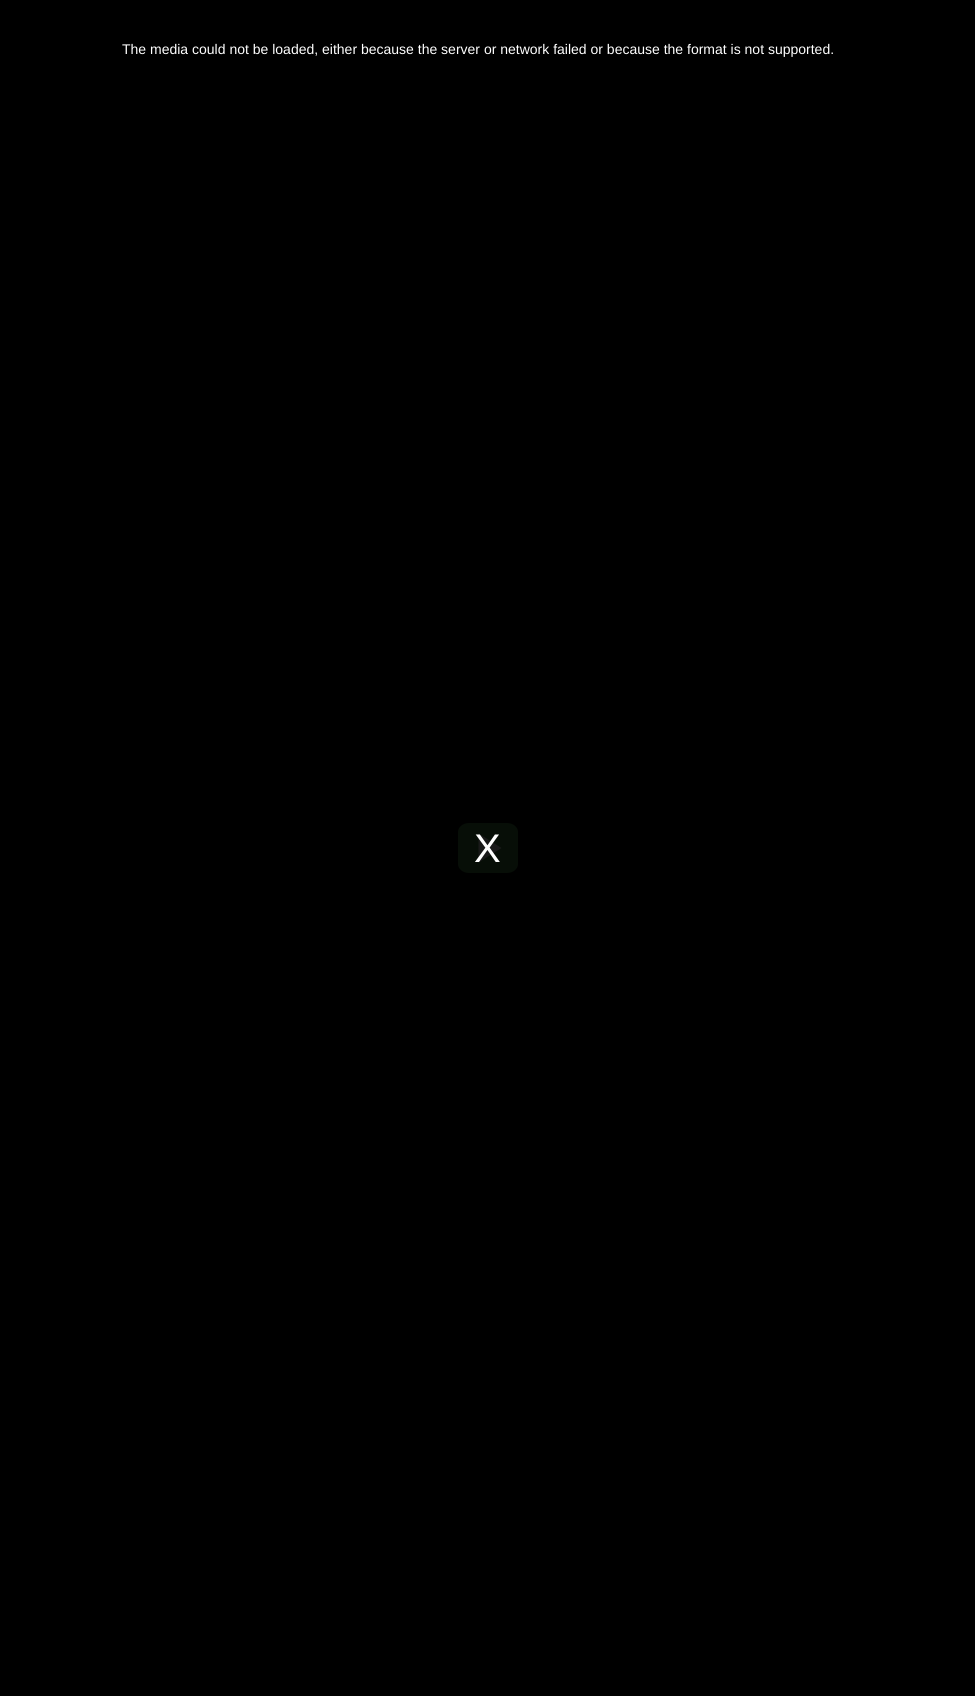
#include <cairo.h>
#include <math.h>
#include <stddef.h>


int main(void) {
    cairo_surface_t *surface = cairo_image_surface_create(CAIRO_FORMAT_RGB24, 975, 1696);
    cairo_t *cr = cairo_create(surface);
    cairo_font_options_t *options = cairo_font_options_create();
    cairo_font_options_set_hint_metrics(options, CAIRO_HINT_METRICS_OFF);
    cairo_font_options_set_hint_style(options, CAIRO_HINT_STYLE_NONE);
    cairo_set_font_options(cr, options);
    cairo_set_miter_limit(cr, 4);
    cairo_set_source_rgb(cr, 0, 0, 0);
    cairo_paint(cr);
    cairo_select_font_face(cr, "Liberation Sans", CAIRO_FONT_SLANT_NORMAL, CAIRO_FONT_WEIGHT_NORMAL);
    cairo_set_font_size(cr, 14);
    cairo_set_source_rgb(cr, 1, 1, 1);
    cairo_move_to(cr, 122, 54);
    cairo_show_text(cr, "The media could not be loaded, either because the server or network failed or because the format is not supported.");
    cairo_set_source_rgb(cr, 0.031, 0.055, 0.031);
    cairo_new_path(cr);
    cairo_move_to(cr, 469, 823);
    cairo_line_to(cr, 507, 823);
    cairo_curve_to(cr, 513, 823, 518, 827, 518, 832);
    cairo_line_to(cr, 518, 864);
    cairo_curve_to(cr, 518, 869, 513, 873, 507, 873);
    cairo_line_to(cr, 469, 873);
    cairo_curve_to(cr, 463, 873, 458, 869, 458, 864);
    cairo_line_to(cr, 458, 832);
    cairo_curve_to(cr, 458, 827, 463, 823, 469, 823);
    cairo_close_path(cr);
    cairo_fill(cr);
    cairo_set_source_rgb(cr, 0.098, 0.098, 0.098);
    cairo_new_path(cr);
    cairo_move_to(cr, 478.5, 833.5);
    cairo_line_to(cr, 478.5, 862.5);
    cairo_line_to(cr, 501.5, 848);
    cairo_close_path(cr);
    cairo_fill(cr);
    cairo_set_font_size(cr, 40);
    cairo_set_source_rgb(cr, 1, 1, 1);
    cairo_move_to(cr, 474, 862);
    cairo_show_text(cr, "X");
    cairo_surface_write_to_png(surface, "page.png");
    cairo_font_options_destroy(options);
    cairo_destroy(cr);
    cairo_surface_destroy(surface);
    return 0;
}
